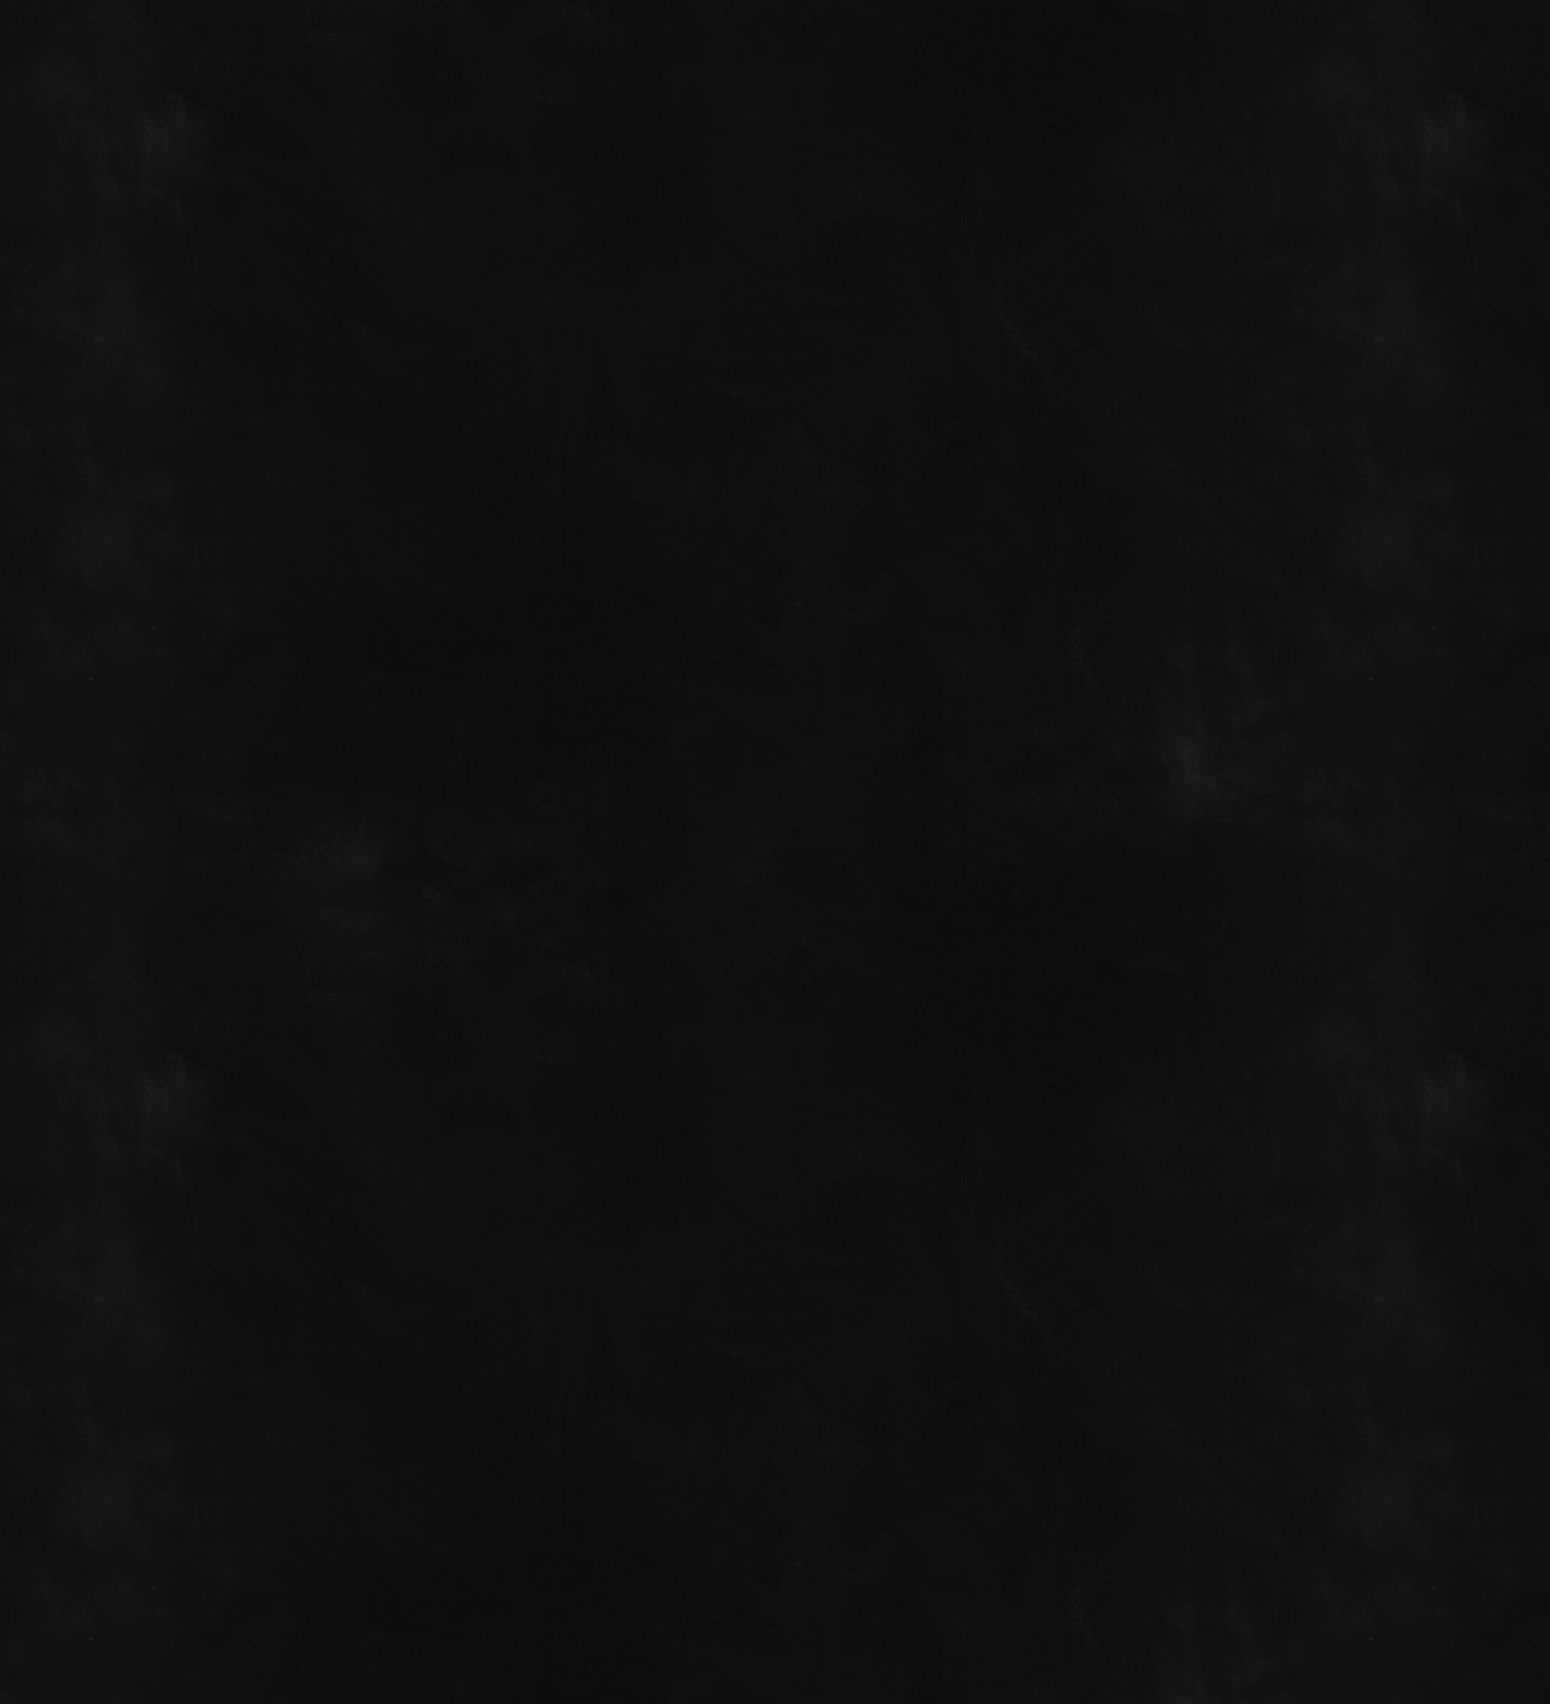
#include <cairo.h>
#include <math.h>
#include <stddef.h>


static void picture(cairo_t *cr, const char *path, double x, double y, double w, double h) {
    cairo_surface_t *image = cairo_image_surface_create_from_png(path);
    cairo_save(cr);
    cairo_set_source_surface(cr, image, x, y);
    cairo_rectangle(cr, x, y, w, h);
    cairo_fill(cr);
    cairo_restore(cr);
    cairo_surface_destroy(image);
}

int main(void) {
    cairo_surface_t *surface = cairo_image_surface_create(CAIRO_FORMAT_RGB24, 1550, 1704);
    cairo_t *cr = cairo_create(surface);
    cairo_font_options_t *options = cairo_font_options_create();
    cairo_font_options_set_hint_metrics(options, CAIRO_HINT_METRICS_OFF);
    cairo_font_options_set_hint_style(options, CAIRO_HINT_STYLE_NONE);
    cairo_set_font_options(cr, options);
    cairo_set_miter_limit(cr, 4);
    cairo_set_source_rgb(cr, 1, 1, 1);
    cairo_paint(cr);
    picture(cr, "img1.png", 0, 0, 1550, 1704);
    cairo_surface_write_to_png(surface, "page.png");
    cairo_font_options_destroy(options);
    cairo_destroy(cr);
    cairo_surface_destroy(surface);
    return 0;
}
